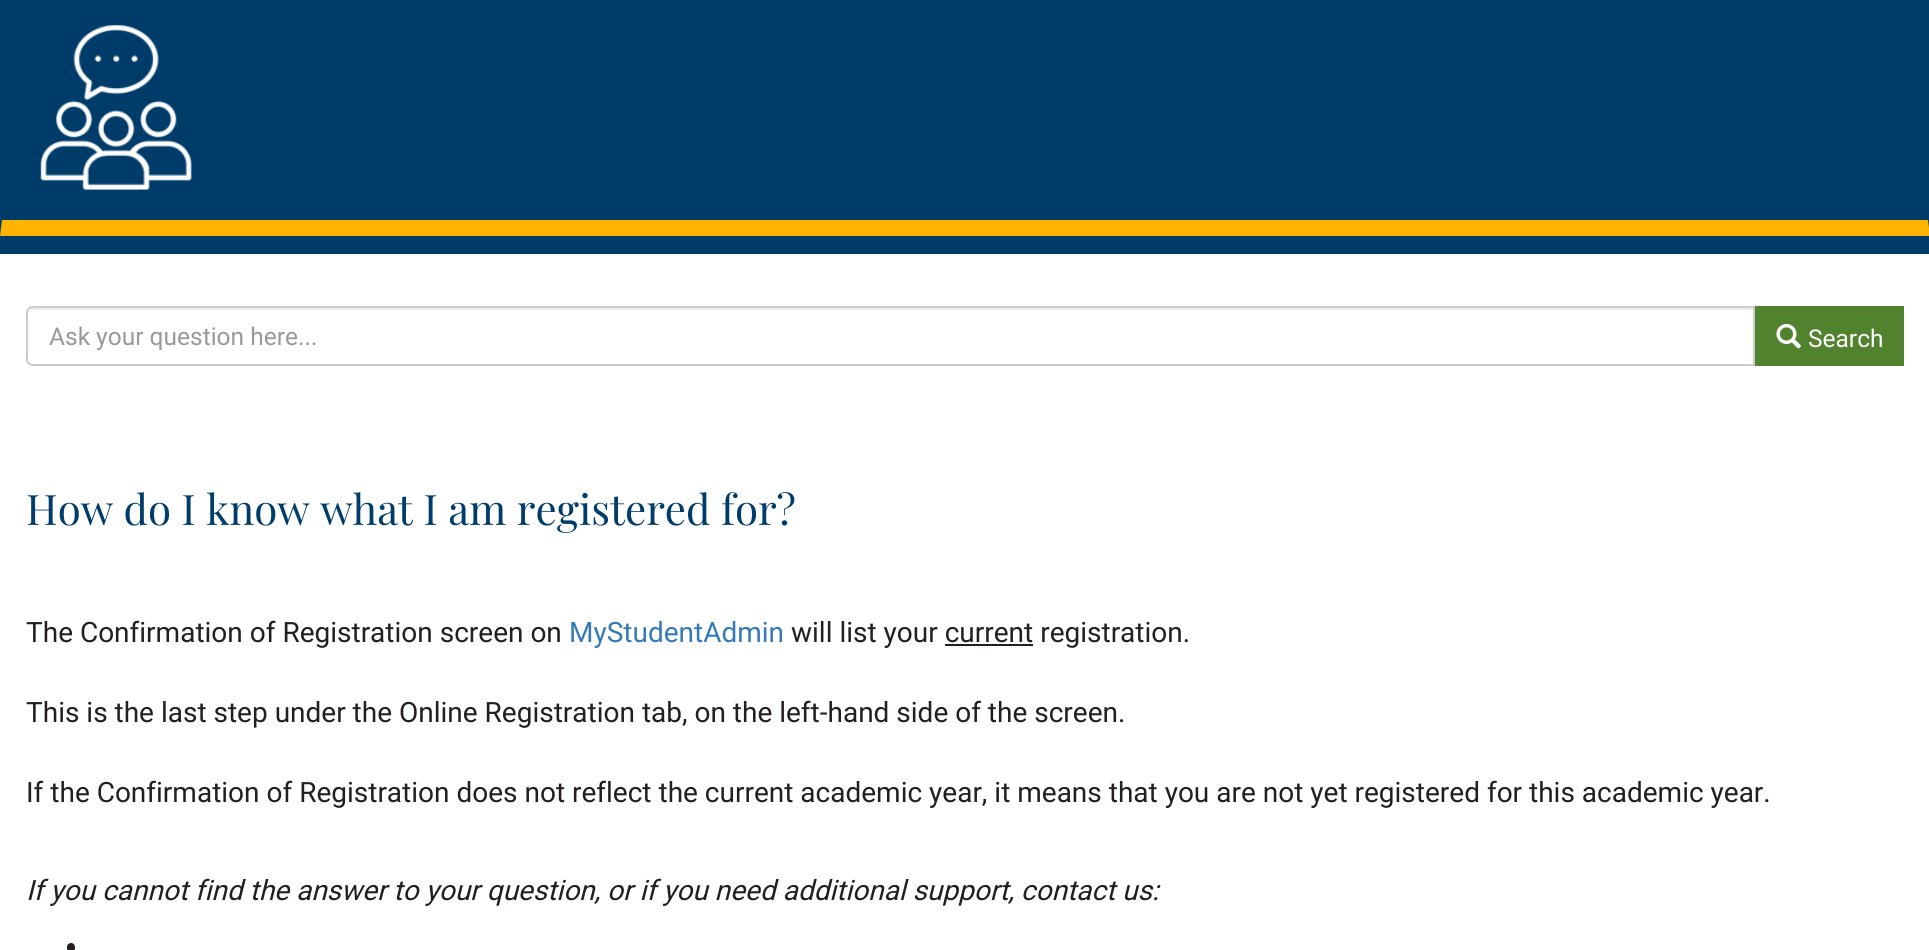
#include <cairo.h>
#include <math.h>
#include <stddef.h>


static void round_rect(cairo_t *cr, double x, double y, double w, double h, double r) {
    cairo_new_sub_path(cr);
    cairo_arc(cr, x + w - r, y + h - r, r, 0, M_PI / 2);
    cairo_arc(cr, x + r, y + h - r, r, M_PI / 2, M_PI);
    cairo_arc(cr, x + r, y + r, r, M_PI, 1.5 * M_PI);
    cairo_arc(cr, x + w - r, y + r, r, 1.5 * M_PI, 2 * M_PI);
    cairo_close_path(cr);
}

static void picture(cairo_t *cr, const char *path, double x, double y, double w, double h) {
    cairo_surface_t *image = cairo_image_surface_create_from_png(path);
    cairo_save(cr);
    cairo_set_source_surface(cr, image, x, y);
    cairo_rectangle(cr, x, y, w, h);
    cairo_fill(cr);
    cairo_restore(cr);
    cairo_surface_destroy(image);
}

int main(void) {
    cairo_surface_t *surface = cairo_image_surface_create(CAIRO_FORMAT_RGB24, 1929, 950);
    cairo_t *cr = cairo_create(surface);
    cairo_font_options_t *options = cairo_font_options_create();
    cairo_font_options_set_hint_metrics(options, CAIRO_HINT_METRICS_OFF);
    cairo_font_options_set_hint_style(options, CAIRO_HINT_STYLE_NONE);
    cairo_set_font_options(cr, options);
    cairo_set_miter_limit(cr, 4);
    cairo_set_source_rgb(cr, 1, 1, 1);
    cairo_paint(cr);
    cairo_set_source_rgb(cr, 0, 0.235, 0.412);
    cairo_rectangle(cr, 0, 0, 1929, 254);
    cairo_fill(cr);
    cairo_set_source_rgb(cr, 1, 0.71, 0);
    cairo_new_path(cr);
    cairo_move_to(cr, 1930, 236);
    cairo_line_to(cr, 0, 236);
    cairo_line_to(cr, 2, 220);
    cairo_line_to(cr, 1928, 220);
    cairo_close_path(cr);
    cairo_fill(cr);
    picture(cr, "img1.png", 40, 25, 152, 165);
    cairo_set_source_rgb(cr, 0.925, 0.925, 0.925);
    cairo_new_path(cr);
    cairo_move_to(cr, 33, 310);
    cairo_line_to(cr, 1754, 310);
    cairo_line_to(cr, 1754, 308);
    cairo_line_to(cr, 33, 308);
    cairo_curve_to(cr, 29, 308, 28, 312, 28, 315);
    cairo_curve_to(cr, 28, 312, 30, 310, 33, 310);
    cairo_close_path(cr);
    cairo_fill(cr);
    cairo_new_path(cr);
    cairo_move_to(cr, 33, 307);
    cairo_line_to(cr, 1754, 307);
    cairo_line_to(cr, 1754, 365);
    cairo_line_to(cr, 33, 365);
    cairo_curve_to(cr, 29.5, 365, 27, 362.5, 27, 359);
    cairo_line_to(cr, 27, 313);
    cairo_curve_to(cr, 27, 309.5, 29.5, 307, 33, 307);
    cairo_close_path(cr);
    cairo_set_source_rgb(cr, 0.8, 0.8, 0.8);
    cairo_stroke(cr);
    cairo_select_font_face(cr, "Roboto", CAIRO_FONT_SLANT_NORMAL, CAIRO_FONT_WEIGHT_NORMAL);
    cairo_set_font_size(cr, 24.5);
    cairo_set_source_rgb(cr, 0.6, 0.6, 0.6);
    cairo_move_to(cr, 49, 345);
    cairo_show_text(cr, "Ask your question here...");
    cairo_set_source_rgb(cr, 0.318, 0.514, 0.18);
    cairo_rectangle(cr, 1755, 306, 149, 60);
    cairo_fill(cr);
    picture(cr, "img2.png", 1776, 323, 25, 26);
    cairo_set_source_rgb(cr, 1, 1, 1);
    cairo_move_to(cr, 1808, 347);
    cairo_show_text(cr, "Search");
    cairo_select_font_face(cr, "Playfair Display", CAIRO_FONT_SLANT_NORMAL, CAIRO_FONT_WEIGHT_NORMAL);
    cairo_set_font_size(cr, 42);
    cairo_set_source_rgb(cr, 0, 0.235, 0.412);
    cairo_move_to(cr, 26, 525);
    cairo_show_text(cr, "How do I know what I am registered for?");
    cairo_select_font_face(cr, "Roboto", CAIRO_FONT_SLANT_NORMAL, CAIRO_FONT_WEIGHT_NORMAL);
    cairo_set_font_size(cr, 28);
    cairo_set_source_rgb(cr, 0.137, 0.122, 0.125);
    cairo_move_to(cr, 26, 642);
    cairo_show_text(cr, "The Confirmation of Registration screen on");
    cairo_set_source_rgb(cr, 0.2, 0.478, 0.718);
    cairo_move_to(cr, 569, 642);
    cairo_show_text(cr, "MyStudentAdmin");
    cairo_set_source_rgb(cr, 0.137, 0.122, 0.125);
    cairo_move_to(cr, 791, 642);
    cairo_show_text(cr, "will list your current registration.");
    cairo_rectangle(cr, 945, 644, 88, 2);
    cairo_fill(cr);
    cairo_move_to(cr, 26, 722);
    cairo_show_text(cr, "This is the last step under the Online Registration tab, on the left-hand side of the screen.");
    cairo_move_to(cr, 26, 802);
    cairo_show_text(cr, "If the Confirmation of Registration does not reflect the current academic year, it means that you are not yet registered for this academic year.");
    cairo_select_font_face(cr, "Roboto", CAIRO_FONT_SLANT_ITALIC, CAIRO_FONT_WEIGHT_NORMAL);
    cairo_move_to(cr, 26, 900);
    cairo_show_text(cr, "If you cannot find the answer to your question, or if you need additional support, contact us:");
    round_rect(cr, 67, 943, 8, 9, 4);
    cairo_fill(cr);
    cairo_surface_write_to_png(surface, "page.png");
    cairo_font_options_destroy(options);
    cairo_destroy(cr);
    cairo_surface_destroy(surface);
    return 0;
}
